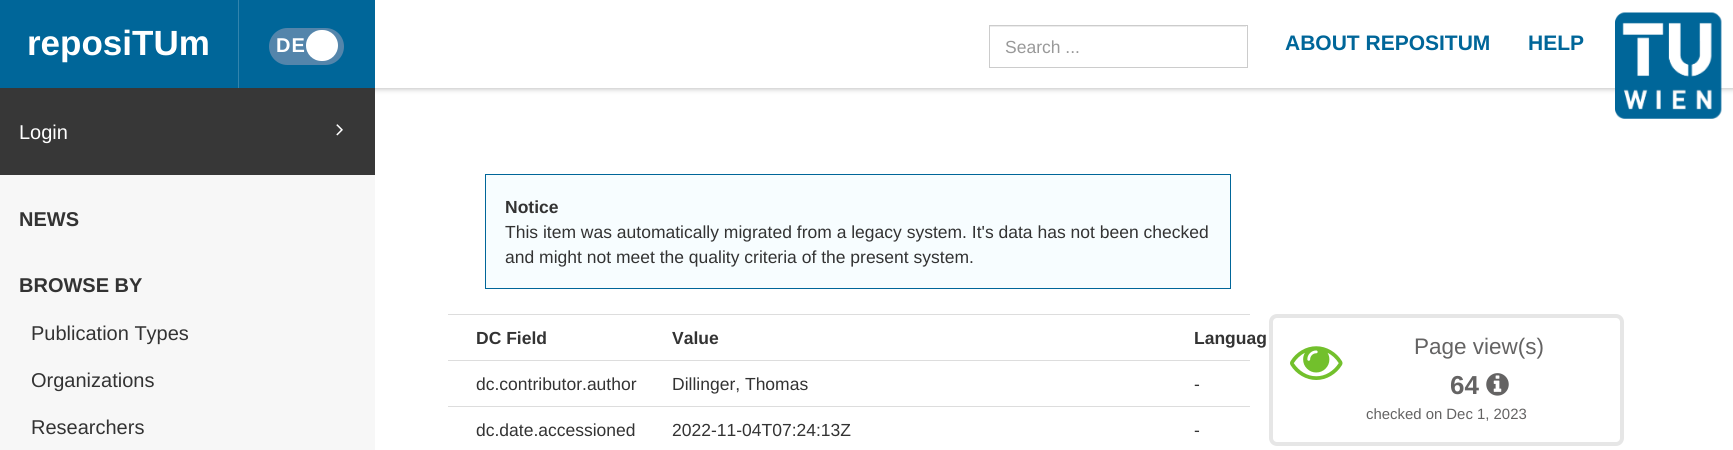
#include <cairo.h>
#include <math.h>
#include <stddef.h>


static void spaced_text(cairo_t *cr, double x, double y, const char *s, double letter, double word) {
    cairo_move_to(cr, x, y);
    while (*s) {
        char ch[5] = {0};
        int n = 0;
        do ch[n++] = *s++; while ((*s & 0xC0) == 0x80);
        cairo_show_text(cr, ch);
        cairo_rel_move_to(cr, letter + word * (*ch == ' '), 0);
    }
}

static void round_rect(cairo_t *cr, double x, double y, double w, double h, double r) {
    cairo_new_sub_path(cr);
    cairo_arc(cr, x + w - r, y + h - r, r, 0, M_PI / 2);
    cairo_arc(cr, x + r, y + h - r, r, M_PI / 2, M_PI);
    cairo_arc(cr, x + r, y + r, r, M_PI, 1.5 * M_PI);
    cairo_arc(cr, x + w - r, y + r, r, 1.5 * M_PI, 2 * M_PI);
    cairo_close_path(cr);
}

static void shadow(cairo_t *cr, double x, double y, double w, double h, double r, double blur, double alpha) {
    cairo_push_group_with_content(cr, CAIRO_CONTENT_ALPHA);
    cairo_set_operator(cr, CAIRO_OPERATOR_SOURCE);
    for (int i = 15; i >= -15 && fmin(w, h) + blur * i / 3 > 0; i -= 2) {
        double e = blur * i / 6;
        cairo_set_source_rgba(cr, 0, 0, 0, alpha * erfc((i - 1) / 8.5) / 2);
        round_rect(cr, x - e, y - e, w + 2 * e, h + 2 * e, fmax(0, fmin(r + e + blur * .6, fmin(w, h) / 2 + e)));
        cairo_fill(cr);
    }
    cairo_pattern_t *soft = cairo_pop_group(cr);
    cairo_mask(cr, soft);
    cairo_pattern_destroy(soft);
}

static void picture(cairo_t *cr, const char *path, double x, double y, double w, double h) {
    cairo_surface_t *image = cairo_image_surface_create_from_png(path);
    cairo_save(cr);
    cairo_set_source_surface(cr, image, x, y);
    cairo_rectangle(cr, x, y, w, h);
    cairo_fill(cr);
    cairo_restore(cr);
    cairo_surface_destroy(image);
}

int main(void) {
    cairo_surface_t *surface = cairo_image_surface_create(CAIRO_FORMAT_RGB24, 1733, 450);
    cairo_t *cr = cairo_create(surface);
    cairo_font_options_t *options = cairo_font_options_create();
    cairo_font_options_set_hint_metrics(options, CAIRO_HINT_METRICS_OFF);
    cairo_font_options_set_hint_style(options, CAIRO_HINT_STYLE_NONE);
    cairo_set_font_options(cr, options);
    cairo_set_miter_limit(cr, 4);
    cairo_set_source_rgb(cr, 1, 1, 1);
    cairo_paint(cr);
    cairo_set_source_rgb(cr, 0.667, 0.667, 0.667);
    shadow(cr, 0, 0, 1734, 88, 0, 3, 1);
    cairo_set_source_rgb(cr, 1, 1, 1);
    cairo_rectangle(cr, 375, 0, 1358, 88);
    cairo_fill(cr);
    cairo_set_source_rgb(cr, 0, 0.4, 0.6);
    cairo_rectangle(cr, 239, 0, 136, 88);
    cairo_fill(cr);
    cairo_rectangle(cr, 0, 0, 238, 88);
    cairo_fill(cr);
    cairo_set_source_rgb(cr, 0.196, 0.518, 0.678);
    cairo_rectangle(cr, 238, 0, 1, 88);
    cairo_fill(cr);
    cairo_select_font_face(cr, "Liberation Sans", CAIRO_FONT_SLANT_NORMAL, CAIRO_FONT_WEIGHT_BOLD);
    cairo_set_font_size(cr, 35);
    cairo_set_source_rgb(cr, 1, 1, 1);
    cairo_move_to(cr, 27, 55);
    cairo_show_text(cr, "reposiTUm");
    cairo_set_source_rgb(cr, 0.329, 0.522, 0.671);
    round_rect(cr, 269, 28, 75, 37, 18.5);
    cairo_fill(cr);
    cairo_set_font_size(cr, 20);
    cairo_set_source_rgb(cr, 1, 1, 1);
    spaced_text(cr, 276, 52, "DE", 1, 0);
    round_rect(cr, 306, 30, 32, 31, 15.5);
    cairo_fill(cr);
    cairo_set_source_rgb(cr, 0.925, 0.925, 0.925);
    cairo_rectangle(cr, 990, 26, 256, 1);
    cairo_fill(cr);
    cairo_rectangle(cr, 989.5, 25.5, 258, 42);
    cairo_set_source_rgb(cr, 0.8, 0.8, 0.8);
    cairo_set_line_width(cr, 1);
    cairo_stroke(cr);
    cairo_select_font_face(cr, "Liberation Sans", CAIRO_FONT_SLANT_NORMAL, CAIRO_FONT_WEIGHT_NORMAL);
    cairo_set_font_size(cr, 17.5);
    cairo_set_source_rgb(cr, 0.6, 0.6, 0.6);
    cairo_move_to(cr, 1005, 53);
    cairo_show_text(cr, "Search ...");
    cairo_select_font_face(cr, "Liberation Sans", CAIRO_FONT_SLANT_NORMAL, CAIRO_FONT_WEIGHT_BOLD);
    cairo_set_font_size(cr, 21);
    cairo_set_source_rgb(cr, 0, 0.4, 0.6);
    cairo_move_to(cr, 1285, 50);
    cairo_show_text(cr, "ABOUT REPOSITUM");
    cairo_move_to(cr, 1528, 50);
    cairo_show_text(cr, "HELP");
    picture(cr, "img1.png", 1615, 12, 107, 107);
    cairo_set_source_rgb(cr, 0.965, 0.965, 0.965);
    cairo_rectangle(cr, 0, 175, 375, 275);
    cairo_fill(cr);
    cairo_set_source_rgb(cr, 0.216, 0.216, 0.216);
    cairo_rectangle(cr, 0, 88, 375, 87);
    cairo_fill(cr);
    cairo_select_font_face(cr, "Liberation Sans", CAIRO_FONT_SLANT_NORMAL, CAIRO_FONT_WEIGHT_NORMAL);
    cairo_set_font_size(cr, 20);
    cairo_set_source_rgb(cr, 1, 1, 1);
    cairo_move_to(cr, 19, 139);
    cairo_show_text(cr, "Login");
    picture(cr, "img2.png", 336, 124, 7, 12);
    cairo_select_font_face(cr, "Liberation Sans", CAIRO_FONT_SLANT_NORMAL, CAIRO_FONT_WEIGHT_BOLD);
    cairo_set_source_rgb(cr, 0.2, 0.2, 0.2);
    cairo_move_to(cr, 19, 226);
    cairo_show_text(cr, "NEWS");
    cairo_move_to(cr, 19, 292);
    cairo_show_text(cr, "BROWSE BY");
    cairo_select_font_face(cr, "Liberation Sans", CAIRO_FONT_SLANT_NORMAL, CAIRO_FONT_WEIGHT_NORMAL);
    cairo_move_to(cr, 31, 340);
    cairo_show_text(cr, "Publication Types");
    cairo_move_to(cr, 31, 387);
    cairo_show_text(cr, "Organizations");
    cairo_move_to(cr, 31, 434);
    cairo_show_text(cr, "Researchers");
    cairo_set_source_rgb(cr, 0.965, 0.992, 1);
    cairo_rectangle(cr, 485.5, 174.5, 745, 114);
    cairo_fill_preserve(cr);
    cairo_set_source_rgb(cr, 0, 0.4, 0.6);
    cairo_stroke(cr);
    cairo_select_font_face(cr, "Liberation Sans", CAIRO_FONT_SLANT_NORMAL, CAIRO_FONT_WEIGHT_BOLD);
    cairo_set_font_size(cr, 17.5);
    cairo_set_source_rgb(cr, 0.2, 0.2, 0.2);
    cairo_move_to(cr, 505, 213);
    cairo_show_text(cr, "Notice");
    cairo_select_font_face(cr, "Liberation Sans", CAIRO_FONT_SLANT_NORMAL, CAIRO_FONT_WEIGHT_NORMAL);
    cairo_move_to(cr, 505, 238);
    cairo_show_text(cr, "This item was automatically migrated from a legacy system. It's data has not been checked");
    cairo_move_to(cr, 505, 263);
    cairo_show_text(cr, "and might not meet the quality criteria of the present system.");
    cairo_set_source_rgb(cr, 0.867, 0.867, 0.867);
    cairo_rectangle(cr, 448, 314, 802, 1);
    cairo_fill(cr);
    cairo_select_font_face(cr, "Liberation Sans", CAIRO_FONT_SLANT_NORMAL, CAIRO_FONT_WEIGHT_BOLD);
    cairo_set_source_rgb(cr, 0.2, 0.2, 0.2);
    cairo_move_to(cr, 476, 344);
    cairo_show_text(cr, "DC Field");
    cairo_move_to(cr, 672, 344);
    cairo_show_text(cr, "Value");
    cairo_move_to(cr, 1194, 344);
    cairo_show_text(cr, "Languag");
    cairo_set_source_rgb(cr, 0.867, 0.867, 0.867);
    cairo_rectangle(cr, 448, 360, 802, 1);
    cairo_fill(cr);
    cairo_select_font_face(cr, "Liberation Sans", CAIRO_FONT_SLANT_NORMAL, CAIRO_FONT_WEIGHT_NORMAL);
    cairo_set_source_rgb(cr, 0.2, 0.2, 0.2);
    cairo_move_to(cr, 476, 390);
    cairo_show_text(cr, "dc.contributor.author");
    cairo_move_to(cr, 672, 390);
    cairo_show_text(cr, "Dillinger, Thomas");
    cairo_move_to(cr, 1194, 390);
    cairo_show_text(cr, "-");
    cairo_set_source_rgb(cr, 0.867, 0.867, 0.867);
    cairo_rectangle(cr, 448, 406, 802, 1);
    cairo_fill(cr);
    cairo_set_source_rgb(cr, 0.2, 0.2, 0.2);
    cairo_move_to(cr, 476, 436);
    cairo_show_text(cr, "dc.date.accessioned");
    cairo_move_to(cr, 672, 436);
    cairo_show_text(cr, "2022-11-04T07:24:13Z");
    cairo_move_to(cr, 1194, 436);
    cairo_show_text(cr, "-");
    round_rect(cr, 1271, 316, 351, 128, 6);
    cairo_set_source_rgb(cr, 0.902, 0.902, 0.902);
    cairo_set_line_width(cr, 4);
    cairo_stroke(cr);
    picture(cr, "img3.png", 1290, 346, 53, 34);
    cairo_set_font_size(cr, 22.5);
    cairo_set_source_rgb(cr, 0.392, 0.388, 0.388);
    cairo_move_to(cr, 1414, 354);
    cairo_show_text(cr, "Page view(s)");
    cairo_select_font_face(cr, "Liberation Sans", CAIRO_FONT_SLANT_NORMAL, CAIRO_FONT_WEIGHT_BOLD);
    cairo_set_font_size(cr, 26);
    cairo_move_to(cr, 1450, 394);
    cairo_show_text(cr, "64");
    picture(cr, "img4.png", 1486, 373, 23, 23);
    cairo_select_font_face(cr, "Liberation Sans", CAIRO_FONT_SLANT_NORMAL, CAIRO_FONT_WEIGHT_NORMAL);
    cairo_set_font_size(cr, 14.9);
    cairo_move_to(cr, 1366, 419);
    cairo_show_text(cr, "checked on Dec 1, 2023");
    cairo_surface_write_to_png(surface, "page.png");
    cairo_font_options_destroy(options);
    cairo_destroy(cr);
    cairo_surface_destroy(surface);
    return 0;
}
